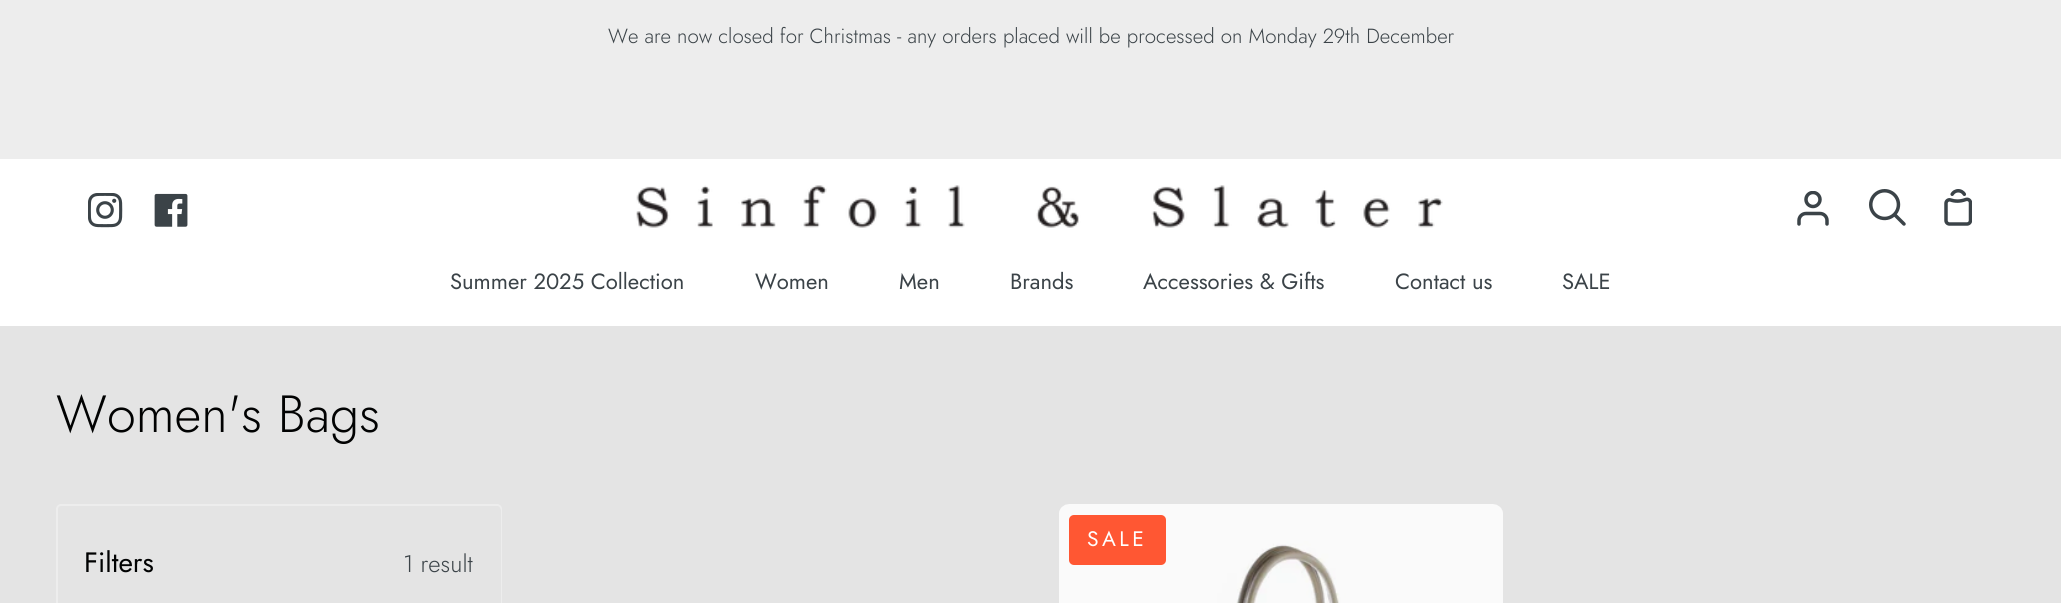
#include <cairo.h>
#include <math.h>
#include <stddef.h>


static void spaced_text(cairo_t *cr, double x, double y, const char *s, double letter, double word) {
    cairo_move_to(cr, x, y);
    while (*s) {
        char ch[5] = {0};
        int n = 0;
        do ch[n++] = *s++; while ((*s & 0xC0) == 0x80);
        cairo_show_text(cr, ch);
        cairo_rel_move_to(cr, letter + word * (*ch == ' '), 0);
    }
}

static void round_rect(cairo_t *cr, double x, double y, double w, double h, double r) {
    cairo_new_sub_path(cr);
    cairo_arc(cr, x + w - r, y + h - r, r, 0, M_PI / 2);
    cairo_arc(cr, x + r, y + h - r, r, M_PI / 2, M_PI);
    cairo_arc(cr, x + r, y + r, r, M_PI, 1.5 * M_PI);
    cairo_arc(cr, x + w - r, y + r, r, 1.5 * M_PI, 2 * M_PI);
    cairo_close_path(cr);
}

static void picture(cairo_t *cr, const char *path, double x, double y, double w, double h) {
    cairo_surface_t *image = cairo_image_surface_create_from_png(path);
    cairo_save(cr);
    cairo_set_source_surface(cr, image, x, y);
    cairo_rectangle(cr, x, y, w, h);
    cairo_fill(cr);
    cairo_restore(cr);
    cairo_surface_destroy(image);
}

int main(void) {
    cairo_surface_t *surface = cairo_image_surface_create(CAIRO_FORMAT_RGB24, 2061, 603);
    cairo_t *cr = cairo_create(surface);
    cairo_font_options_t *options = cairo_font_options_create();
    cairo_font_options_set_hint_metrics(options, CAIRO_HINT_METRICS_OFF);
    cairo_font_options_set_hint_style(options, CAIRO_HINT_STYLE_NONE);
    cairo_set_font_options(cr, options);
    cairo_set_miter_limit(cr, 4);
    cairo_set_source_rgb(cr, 1, 1, 1);
    cairo_paint(cr);
    cairo_set_source_rgb(cr, 0.929, 0.929, 0.929);
    cairo_rectangle(cr, 0, 0, 2061, 159);
    cairo_fill(cr);
    cairo_select_font_face(cr, "Jost Light", CAIRO_FONT_SLANT_NORMAL, CAIRO_FONT_WEIGHT_NORMAL);
    cairo_set_font_size(cr, 20.45);
    cairo_set_source_rgb(cr, 0.231, 0.263, 0.282);
    cairo_move_to(cr, 608, 43);
    cairo_show_text(cr, "We are now closed for Christmas - any orders placed will be processed on Monday 29th December");
    picture(cr, "img1.png", 88, 193, 35, 35);
    picture(cr, "img2.png", 154, 193, 34, 34);
    picture(cr, "img3.png", 636, 185, 807, 43);
    picture(cr, "img4.png", 1797, 191, 32, 35);
    picture(cr, "img5.png", 1869, 189, 37, 37);
    picture(cr, "img6.png", 1944, 189, 28, 37);
    cairo_select_font_face(cr, "Jost", CAIRO_FONT_SLANT_NORMAL, CAIRO_FONT_WEIGHT_NORMAL);
    cairo_set_font_size(cr, 22);
    cairo_move_to(cr, 450, 289);
    cairo_show_text(cr, "Summer 2025 Collection");
    cairo_move_to(cr, 755, 289);
    cairo_show_text(cr, "Women");
    cairo_move_to(cr, 899, 289);
    cairo_show_text(cr, "Men");
    cairo_move_to(cr, 1010, 289);
    cairo_show_text(cr, "Brands");
    cairo_move_to(cr, 1143, 289);
    cairo_show_text(cr, "Accessories & Gifts");
    cairo_move_to(cr, 1395, 289);
    cairo_show_text(cr, "Contact us");
    cairo_move_to(cr, 1562, 289);
    cairo_show_text(cr, "SALE");
    cairo_set_source_rgb(cr, 0.894, 0.894, 0.894);
    cairo_rectangle(cr, 0, 326, 2061, 277);
    cairo_fill(cr);
    cairo_select_font_face(cr, "Jost Light", CAIRO_FONT_SLANT_NORMAL, CAIRO_FONT_WEIGHT_NORMAL);
    cairo_set_font_size(cr, 52.25);
    cairo_set_source_rgb(cr, 0.004, 0.008, 0.008);
    cairo_move_to(cr, 56, 432);
    cairo_show_text(cr, "Women's Bags");
    picture(cr, "img7.png", 1059, 504, 444, 99);
    cairo_set_source_rgb(cr, 1, 0.341, 0.2);
    round_rect(cr, 1069, 515, 97, 50, 5);
    cairo_fill(cr);
    cairo_select_font_face(cr, "Jost", CAIRO_FONT_SLANT_NORMAL, CAIRO_FONT_WEIGHT_NORMAL);
    cairo_set_font_size(cr, 21);
    cairo_set_source_rgb(cr, 1, 1, 1);
    spaced_text(cr, 1087, 546, "SALE", 3.5, 0);
    round_rect(cr, 57, 505, 444, 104, 4);
    cairo_set_source_rgb(cr, 0.929, 0.929, 0.929);
    cairo_stroke(cr);
    cairo_set_source_rgb(cr, 0.894, 0.894, 0.894);
    round_rect(cr, 58, 506, 443, 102, 5);
    cairo_fill(cr);
    cairo_set_font_size(cr, 28);
    cairo_set_source_rgb(cr, 0.004, 0.008, 0.008);
    cairo_move_to(cr, 84, 572);
    cairo_show_text(cr, "Filters");
    cairo_select_font_face(cr, "Jost Light", CAIRO_FONT_SLANT_NORMAL, CAIRO_FONT_WEIGHT_NORMAL);
    cairo_set_font_size(cr, 24);
    cairo_set_source_rgb(cr, 0.231, 0.263, 0.282);
    cairo_move_to(cr, 403, 572);
    cairo_show_text(cr, "1 result");
    cairo_surface_write_to_png(surface, "page.png");
    cairo_font_options_destroy(options);
    cairo_destroy(cr);
    cairo_surface_destroy(surface);
    return 0;
}
